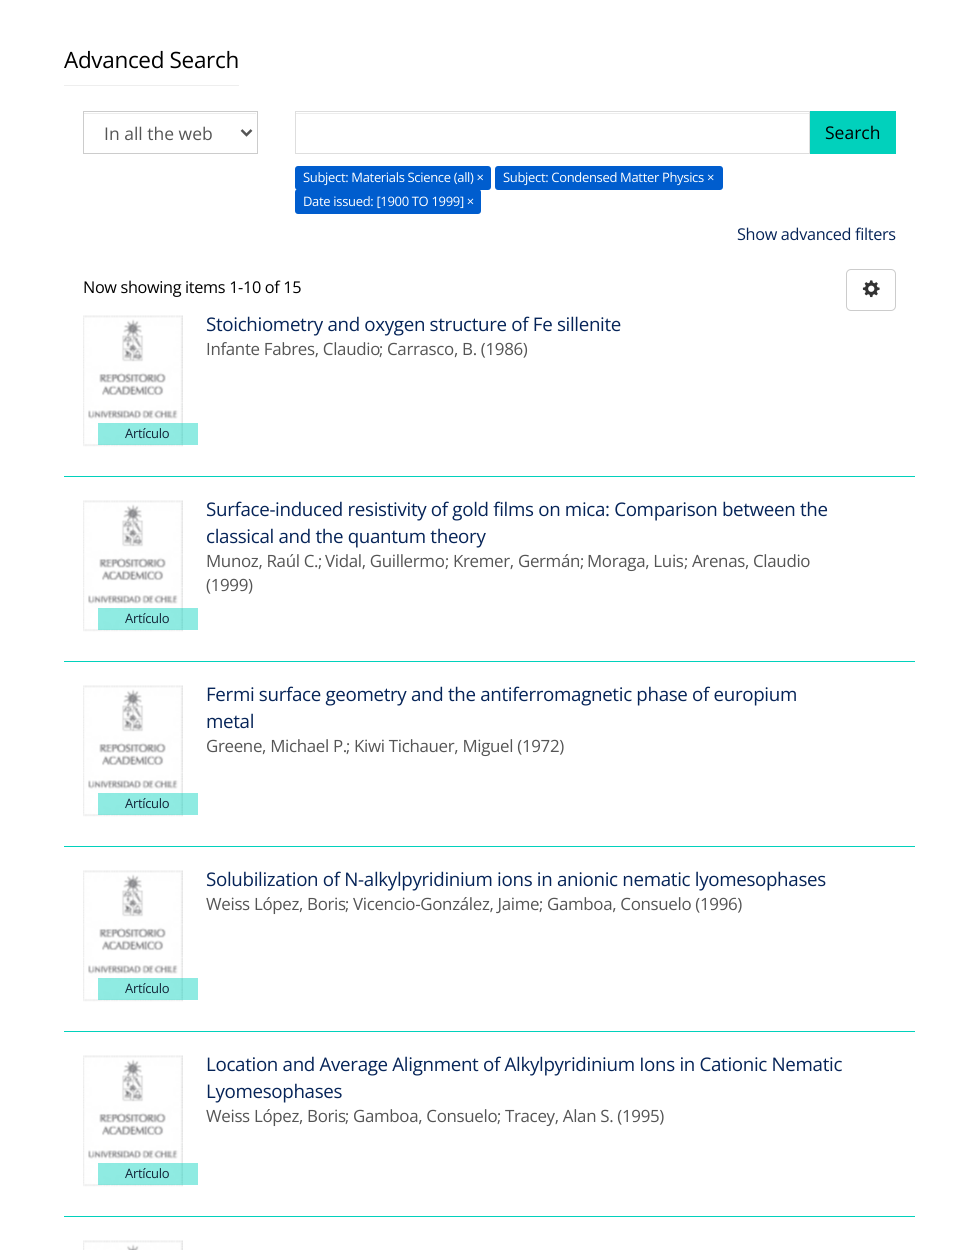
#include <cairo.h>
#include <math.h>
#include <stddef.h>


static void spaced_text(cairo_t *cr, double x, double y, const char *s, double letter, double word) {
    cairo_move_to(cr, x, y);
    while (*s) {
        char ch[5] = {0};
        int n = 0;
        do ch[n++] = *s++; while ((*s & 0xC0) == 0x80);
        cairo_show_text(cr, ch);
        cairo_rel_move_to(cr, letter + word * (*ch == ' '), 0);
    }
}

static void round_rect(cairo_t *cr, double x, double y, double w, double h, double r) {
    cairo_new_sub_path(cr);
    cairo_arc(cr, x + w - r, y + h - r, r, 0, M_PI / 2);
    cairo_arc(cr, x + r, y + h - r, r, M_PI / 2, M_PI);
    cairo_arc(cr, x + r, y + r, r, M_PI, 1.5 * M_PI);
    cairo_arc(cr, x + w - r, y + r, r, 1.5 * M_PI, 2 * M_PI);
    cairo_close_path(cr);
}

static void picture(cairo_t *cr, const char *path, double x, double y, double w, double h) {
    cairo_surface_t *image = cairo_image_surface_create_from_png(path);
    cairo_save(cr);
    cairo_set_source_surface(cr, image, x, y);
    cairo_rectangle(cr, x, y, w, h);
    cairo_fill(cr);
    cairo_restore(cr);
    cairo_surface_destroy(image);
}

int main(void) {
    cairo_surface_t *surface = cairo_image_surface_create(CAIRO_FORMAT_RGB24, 960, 1250);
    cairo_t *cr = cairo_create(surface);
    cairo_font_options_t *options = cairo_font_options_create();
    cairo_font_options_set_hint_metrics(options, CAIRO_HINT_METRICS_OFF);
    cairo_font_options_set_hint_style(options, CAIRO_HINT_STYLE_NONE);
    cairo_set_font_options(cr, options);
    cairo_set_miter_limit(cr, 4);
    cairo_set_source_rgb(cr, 1, 1, 1);
    cairo_paint(cr);
    cairo_set_source_rgb(cr, 0.933, 0.933, 0.933);
    cairo_rectangle(cr, 64, 85, 175, 1);
    cairo_fill(cr);
    cairo_select_font_face(cr, "Open Sans", CAIRO_FONT_SLANT_NORMAL, CAIRO_FONT_WEIGHT_NORMAL);
    cairo_set_font_size(cr, 22.5);
    cairo_set_source_rgb(cr, 0, 0, 0);
    spaced_text(cr, 64, 68, "Advanced Search", -0.33, 0);
    cairo_set_source_rgb(cr, 0.925, 0.925, 0.925);
    cairo_rectangle(cr, 84, 113, 172, 1);
    cairo_fill(cr);
    cairo_rectangle(cr, 83.5, 111.5, 174, 42);
    cairo_set_source_rgb(cr, 0.8, 0.8, 0.8);
    cairo_set_line_width(cr, 1);
    cairo_stroke(cr);
    cairo_new_path(cr);
    cairo_move_to(cr, 241.5, 130);
    cairo_line_to(cr, 246.5, 135);
    cairo_line_to(cr, 251.5, 130);
    cairo_set_source_rgb(cr, 0.333, 0.333, 0.333);
    cairo_set_line_width(cr, 2.5);
    cairo_stroke(cr);
    cairo_set_font_size(cr, 17.5);
    cairo_move_to(cr, 104, 140);
    cairo_show_text(cr, "In all the web");
    cairo_set_source_rgb(cr, 0.925, 0.925, 0.925);
    cairo_rectangle(cr, 296, 113, 513, 1);
    cairo_fill(cr);
    cairo_rectangle(cr, 295.5, 111.5, 514, 42);
    cairo_set_source_rgb(cr, 0.871, 0.871, 0.871);
    cairo_set_line_width(cr, 1);
    cairo_stroke(cr);
    cairo_set_source_rgb(cr, 0.004, 0.82, 0.737);
    cairo_rectangle(cr, 810, 111, 86, 43);
    cairo_fill(cr);
    cairo_set_source_rgb(cr, 0, 0, 0);
    cairo_move_to(cr, 825, 139);
    cairo_show_text(cr, "Search");
    cairo_set_source_rgb(cr, 0, 0.365, 0.808);
    round_rect(cr, 295, 166, 196, 24, 3);
    cairo_fill(cr);
    cairo_set_font_size(cr, 13);
    cairo_set_source_rgb(cr, 1, 1, 1);
    spaced_text(cr, 303, 182, "Subject: Materials Science (all) ×", -0.33, 0);
    cairo_set_source_rgb(cr, 0, 0.365, 0.808);
    round_rect(cr, 495, 166, 228, 24, 3);
    cairo_fill(cr);
    cairo_set_source_rgb(cr, 1, 1, 1);
    spaced_text(cr, 503, 182, "Subject: Condensed Matter Physics ×", -0.33, 0);
    cairo_set_source_rgb(cr, 0, 0.365, 0.808);
    round_rect(cr, 295, 189, 186, 25, 3);
    cairo_fill(cr);
    cairo_set_source_rgb(cr, 1, 1, 1);
    spaced_text(cr, 303, 206, "Date issued: [1900 TO 1999] ×", -0.33, 0);
    cairo_set_font_size(cr, 16.25);
    cairo_set_source_rgb(cr, 0.027, 0.141, 0.345);
    spaced_text(cr, 737, 240, "Show advanced filters", -0.33, 0);
    cairo_set_source_rgb(cr, 0, 0, 0);
    spaced_text(cr, 83, 293, "Now showing items 1-10 of 15", -0.33, 0);
    round_rect(cr, 846.5, 269.5, 49, 41, 4.5);
    cairo_set_source_rgb(cr, 0.8, 0.8, 0.8);
    cairo_stroke(cr);
    picture(cr, "img1.png", 862, 280, 18, 18);
    cairo_set_source_rgb(cr, 0.004, 0.82, 0.737);
    cairo_rectangle(cr, 64, 476, 851, 1);
    cairo_fill(cr);
    cairo_set_font_size(cr, 18.75);
    cairo_set_source_rgb(cr, 0.027, 0.141, 0.345);
    spaced_text(cr, 206, 331, "Stoichiometry and oxygen structure of Fe sillenite", -0.33, 0);
    cairo_set_font_size(cr, 16.9);
    cairo_set_source_rgb(cr, 0.333, 0.333, 0.333);
    spaced_text(cr, 206, 355, "Infante Fabres, Claudio", -0.33, 0);
    cairo_set_font_size(cr, 16.25);
    spaced_text(cr, 379, 355, ";", -0.33, 0);
    cairo_set_font_size(cr, 16.9);
    spaced_text(cr, 387, 355, "Carrasco, B. (1986)", -0.33, 0);
    picture(cr, "img2.png", 83, 315, 100, 132);
    cairo_set_source_rgba(cr, 0, 0.82, 0.737, 0.44);
    cairo_rectangle(cr, 98, 423, 100, 22);
    cairo_fill(cr);
    cairo_set_font_size(cr, 13);
    cairo_set_source_rgb(cr, 0.071, 0.145, 0.22);
    spaced_text(cr, 125, 438, "Artículo", -0.33, 0);
    cairo_set_source_rgb(cr, 0.004, 0.82, 0.737);
    cairo_rectangle(cr, 64, 661, 851, 1);
    cairo_fill(cr);
    cairo_set_font_size(cr, 18.75);
    cairo_set_source_rgb(cr, 0.027, 0.141, 0.345);
    spaced_text(cr, 206, 516, "Surface-induced resistivity of gold films on mica: Comparison between the", -0.33, 0);
    spaced_text(cr, 206, 543, "classical and the quantum theory", -0.33, 0);
    cairo_set_font_size(cr, 16.9);
    cairo_set_source_rgb(cr, 0.333, 0.333, 0.333);
    spaced_text(cr, 206, 567, "Munoz, Raúl C.", -0.33, 0);
    cairo_set_font_size(cr, 16.25);
    spaced_text(cr, 318, 567, ";", -0.33, 0);
    cairo_set_font_size(cr, 16.9);
    spaced_text(cr, 325, 567, "Vidal, Guillermo", -0.33, 0);
    cairo_set_font_size(cr, 16.25);
    spaced_text(cr, 445, 567, ";", -0.33, 0);
    cairo_set_font_size(cr, 16.9);
    spaced_text(cr, 453, 567, "Kremer, Germán", -0.33, 0);
    cairo_set_font_size(cr, 16.25);
    spaced_text(cr, 580, 567, ";", -0.33, 0);
    cairo_set_font_size(cr, 16.9);
    spaced_text(cr, 587, 567, "Moraga, Luis", -0.33, 0);
    cairo_set_font_size(cr, 16.25);
    spaced_text(cr, 684, 567, ";", -0.33, 0);
    cairo_set_font_size(cr, 16.9);
    spaced_text(cr, 692, 567, "Arenas, Claudio", -0.33, 0);
    spaced_text(cr, 206, 591, "(1999)", -0.33, 0);
    picture(cr, "img2.png", 83, 500, 100, 132);
    cairo_set_source_rgba(cr, 0, 0.82, 0.737, 0.44);
    cairo_rectangle(cr, 98, 608, 100, 22);
    cairo_fill(cr);
    cairo_set_font_size(cr, 13);
    cairo_set_source_rgb(cr, 0.071, 0.145, 0.22);
    spaced_text(cr, 125, 623, "Artículo", -0.33, 0);
    cairo_set_source_rgb(cr, 0.004, 0.82, 0.737);
    cairo_rectangle(cr, 64, 846, 851, 1);
    cairo_fill(cr);
    cairo_set_font_size(cr, 18.75);
    cairo_set_source_rgb(cr, 0.027, 0.141, 0.345);
    spaced_text(cr, 206, 701, "Fermi surface geometry and the antiferromagnetic phase of europium", -0.33, 0);
    spaced_text(cr, 206, 728, "metal", -0.33, 0);
    cairo_set_font_size(cr, 16.9);
    cairo_set_source_rgb(cr, 0.333, 0.333, 0.333);
    spaced_text(cr, 206, 752, "Greene, Michael P.", -0.33, 0);
    cairo_set_font_size(cr, 16.25);
    spaced_text(cr, 346, 752, ";", -0.33, 0);
    cairo_set_font_size(cr, 16.9);
    spaced_text(cr, 354, 752, "Kiwi Tichauer, Miguel (1972)", -0.33, 0);
    picture(cr, "img2.png", 83, 685, 100, 132);
    cairo_set_source_rgba(cr, 0, 0.82, 0.737, 0.44);
    cairo_rectangle(cr, 98, 793, 100, 22);
    cairo_fill(cr);
    cairo_set_font_size(cr, 13);
    cairo_set_source_rgb(cr, 0.071, 0.145, 0.22);
    spaced_text(cr, 125, 808, "Artículo", -0.33, 0);
    cairo_set_source_rgb(cr, 0.004, 0.82, 0.737);
    cairo_rectangle(cr, 64, 1031, 851, 1);
    cairo_fill(cr);
    cairo_set_font_size(cr, 18.75);
    cairo_set_source_rgb(cr, 0.027, 0.141, 0.345);
    spaced_text(cr, 206, 886, "Solubilization of N-alkylpyridinium ions in anionic nematic lyomesophases", -0.33, 0);
    cairo_set_font_size(cr, 16.9);
    cairo_set_source_rgb(cr, 0.333, 0.333, 0.333);
    spaced_text(cr, 206, 910, "Weiss López, Boris", -0.33, 0);
    cairo_set_font_size(cr, 16.25);
    spaced_text(cr, 345, 910, ";", -0.33, 0);
    cairo_set_font_size(cr, 16.9);
    spaced_text(cr, 353, 910, "Vicencio-González, Jaime", -0.33, 0);
    cairo_set_font_size(cr, 16.25);
    spaced_text(cr, 539, 910, ";", -0.33, 0);
    cairo_set_font_size(cr, 16.9);
    spaced_text(cr, 547, 910, "Gamboa, Consuelo (1996)", -0.33, 0);
    picture(cr, "img2.png", 83, 870, 100, 132);
    cairo_set_source_rgba(cr, 0, 0.82, 0.737, 0.44);
    cairo_rectangle(cr, 98, 978, 100, 22);
    cairo_fill(cr);
    cairo_set_font_size(cr, 13);
    cairo_set_source_rgb(cr, 0.071, 0.145, 0.22);
    spaced_text(cr, 125, 993, "Artículo", -0.33, 0);
    cairo_set_source_rgb(cr, 0.004, 0.82, 0.737);
    cairo_rectangle(cr, 64, 1216, 851, 1);
    cairo_fill(cr);
    cairo_set_font_size(cr, 18.75);
    cairo_set_source_rgb(cr, 0.027, 0.141, 0.345);
    spaced_text(cr, 206, 1071, "Location and Average Alignment of Alkylpyridinium Ions in Cationic Nematic", -0.33, 0);
    spaced_text(cr, 206, 1098, "Lyomesophases", -0.33, 0);
    cairo_set_font_size(cr, 16.9);
    cairo_set_source_rgb(cr, 0.333, 0.333, 0.333);
    spaced_text(cr, 206, 1122, "Weiss López, Boris", -0.33, 0);
    cairo_set_font_size(cr, 16.25);
    spaced_text(cr, 345, 1122, ";", -0.33, 0);
    cairo_set_font_size(cr, 16.9);
    spaced_text(cr, 353, 1122, "Gamboa, Consuelo", -0.33, 0);
    cairo_set_font_size(cr, 16.25);
    spaced_text(cr, 497, 1122, ";", -0.33, 0);
    cairo_set_font_size(cr, 16.9);
    spaced_text(cr, 505, 1122, "Tracey, Alan S. (1995)", -0.33, 0);
    picture(cr, "img2.png", 83, 1055, 100, 132);
    cairo_set_source_rgba(cr, 0, 0.82, 0.737, 0.44);
    cairo_rectangle(cr, 98, 1163, 100, 22);
    cairo_fill(cr);
    cairo_set_font_size(cr, 13);
    cairo_set_source_rgb(cr, 0.071, 0.145, 0.22);
    spaced_text(cr, 125, 1178, "Artículo", -0.33, 0);
    picture(cr, "img3.png", 83, 1240, 100, 10);
    cairo_surface_write_to_png(surface, "page.png");
    cairo_font_options_destroy(options);
    cairo_destroy(cr);
    cairo_surface_destroy(surface);
    return 0;
}
